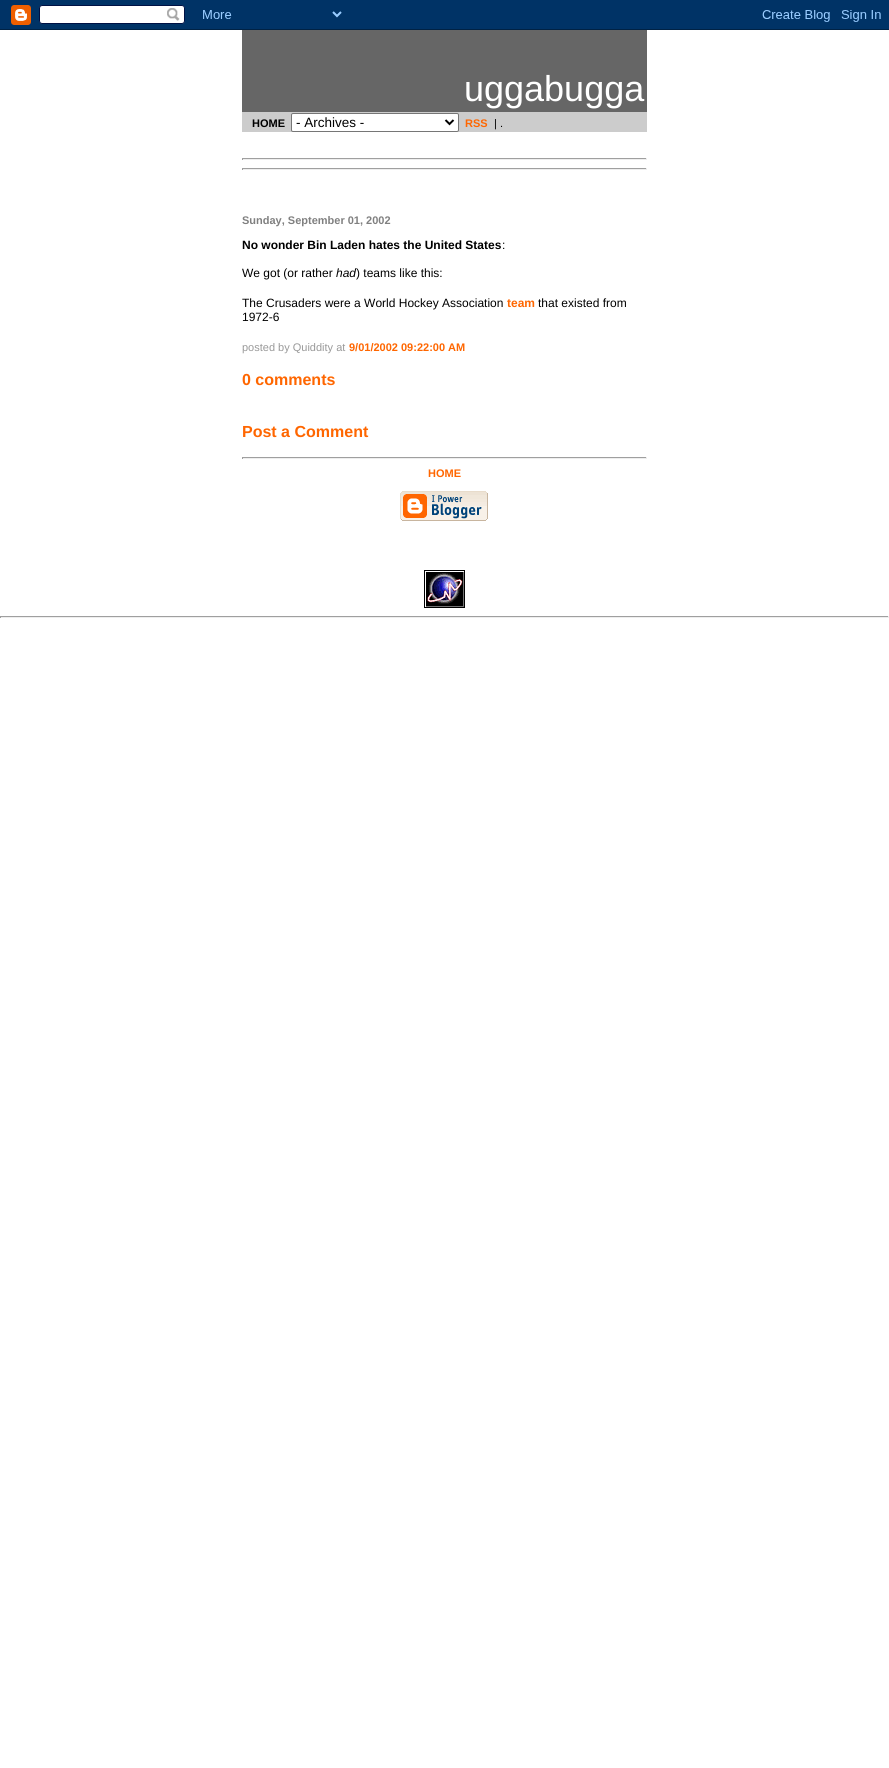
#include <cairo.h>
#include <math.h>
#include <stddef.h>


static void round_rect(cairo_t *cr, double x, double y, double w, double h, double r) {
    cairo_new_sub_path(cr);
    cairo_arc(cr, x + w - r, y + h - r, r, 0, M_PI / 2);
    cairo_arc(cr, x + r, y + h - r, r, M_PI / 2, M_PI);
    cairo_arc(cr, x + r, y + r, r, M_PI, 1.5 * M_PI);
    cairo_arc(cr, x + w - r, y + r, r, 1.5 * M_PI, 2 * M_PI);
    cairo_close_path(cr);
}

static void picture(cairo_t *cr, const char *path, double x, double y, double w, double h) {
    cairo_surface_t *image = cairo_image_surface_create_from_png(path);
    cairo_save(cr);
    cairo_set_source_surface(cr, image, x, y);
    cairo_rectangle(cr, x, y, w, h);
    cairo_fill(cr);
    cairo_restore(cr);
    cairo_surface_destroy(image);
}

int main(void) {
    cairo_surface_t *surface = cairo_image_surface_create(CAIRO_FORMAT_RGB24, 889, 1768);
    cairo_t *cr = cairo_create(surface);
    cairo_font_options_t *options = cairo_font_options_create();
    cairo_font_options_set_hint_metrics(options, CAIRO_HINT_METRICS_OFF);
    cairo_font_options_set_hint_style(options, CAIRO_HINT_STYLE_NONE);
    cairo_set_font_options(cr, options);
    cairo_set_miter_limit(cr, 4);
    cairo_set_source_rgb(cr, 1, 1, 1);
    cairo_paint(cr);
    picture(cr, "img1.png", 0, 0, 889, 30);
    cairo_set_source_rgb(cr, 0.4, 0.4, 0.4);
    cairo_rectangle(cr, 242, 30, 405, 82);
    cairo_fill(cr);
    cairo_select_font_face(cr, "Liberation Sans", CAIRO_FONT_SLANT_NORMAL, CAIRO_FONT_WEIGHT_NORMAL);
    cairo_set_font_size(cr, 36);
    cairo_set_source_rgb(cr, 1, 1, 1);
    cairo_move_to(cr, 464, 101);
    cairo_show_text(cr, "uggabugga");
    cairo_set_source_rgb(cr, 0.8, 0.8, 0.8);
    cairo_rectangle(cr, 242, 112, 405, 20);
    cairo_fill(cr);
    cairo_select_font_face(cr, "Liberation Sans", CAIRO_FONT_SLANT_NORMAL, CAIRO_FONT_WEIGHT_BOLD);
    cairo_set_font_size(cr, 11);
    cairo_set_source_rgb(cr, 0, 0, 0);
    cairo_move_to(cr, 252, 127);
    cairo_show_text(cr, "HOME");
    cairo_set_source_rgb(cr, 1, 1, 1);
    round_rect(cr, 291.5, 113.5, 167, 18, 1.5);
    cairo_fill_preserve(cr);
    cairo_set_source_rgb(cr, 0.463, 0.463, 0.463);
    cairo_set_line_width(cr, 1);
    cairo_stroke(cr);
    cairo_new_path(cr);
    cairo_move_to(cr, 445.5, 120);
    cairo_line_to(cr, 449.5, 124);
    cairo_line_to(cr, 453.5, 120);
    cairo_set_source_rgb(cr, 0, 0, 0);
    cairo_set_line_width(cr, 2);
    cairo_stroke(cr);
    cairo_select_font_face(cr, "Liberation Sans", CAIRO_FONT_SLANT_NORMAL, CAIRO_FONT_WEIGHT_NORMAL);
    cairo_set_font_size(cr, 13.5);
    cairo_move_to(cr, 296, 127);
    cairo_show_text(cr, "- Archives -");
    cairo_select_font_face(cr, "Liberation Sans", CAIRO_FONT_SLANT_NORMAL, CAIRO_FONT_WEIGHT_BOLD);
    cairo_set_font_size(cr, 11);
    cairo_set_source_rgb(cr, 1, 0.4, 0);
    cairo_move_to(cr, 465, 127);
    cairo_show_text(cr, "RSS");
    cairo_select_font_face(cr, "Liberation Sans", CAIRO_FONT_SLANT_NORMAL, CAIRO_FONT_WEIGHT_NORMAL);
    cairo_set_source_rgb(cr, 0, 0, 0);
    cairo_move_to(cr, 494, 127);
    cairo_show_text(cr, "| .");
    cairo_set_source_rgb(cr, 0.624, 0.624, 0.624);
    cairo_rectangle(cr, 242, 158, 405, 1);
    cairo_fill(cr);
    cairo_set_source_rgb(cr, 0.933, 0.933, 0.933);
    cairo_rectangle(cr, 646, 158, 1, 2);
    cairo_fill(cr);
    cairo_rectangle(cr, 242, 159, 405, 1);
    cairo_fill(cr);
    cairo_set_source_rgb(cr, 0.624, 0.624, 0.624);
    cairo_rectangle(cr, 242, 158, 1, 2);
    cairo_fill(cr);
    cairo_rectangle(cr, 242, 168, 405, 1);
    cairo_fill(cr);
    cairo_set_source_rgb(cr, 0.933, 0.933, 0.933);
    cairo_rectangle(cr, 646, 168, 1, 2);
    cairo_fill(cr);
    cairo_rectangle(cr, 242, 169, 405, 1);
    cairo_fill(cr);
    cairo_set_source_rgb(cr, 0.624, 0.624, 0.624);
    cairo_rectangle(cr, 242, 168, 1, 2);
    cairo_fill(cr);
    cairo_select_font_face(cr, "Liberation Sans", CAIRO_FONT_SLANT_NORMAL, CAIRO_FONT_WEIGHT_BOLD);
    cairo_set_source_rgb(cr, 0.502, 0.502, 0.502);
    cairo_move_to(cr, 242, 224);
    cairo_show_text(cr, "Sunday, September 01, 2002");
    cairo_set_font_size(cr, 12);
    cairo_set_source_rgb(cr, 0, 0, 0);
    cairo_move_to(cr, 242, 249);
    cairo_show_text(cr, "No wonder Bin Laden hates the United States");
    cairo_select_font_face(cr, "Liberation Sans", CAIRO_FONT_SLANT_NORMAL, CAIRO_FONT_WEIGHT_NORMAL);
    cairo_move_to(cr, 502, 249);
    cairo_show_text(cr, ":");
    cairo_move_to(cr, 242, 277);
    cairo_show_text(cr, "We got (or rather");
    cairo_select_font_face(cr, "Liberation Sans", CAIRO_FONT_SLANT_ITALIC, CAIRO_FONT_WEIGHT_NORMAL);
    cairo_move_to(cr, 336, 277);
    cairo_show_text(cr, "had");
    cairo_select_font_face(cr, "Liberation Sans", CAIRO_FONT_SLANT_NORMAL, CAIRO_FONT_WEIGHT_NORMAL);
    cairo_move_to(cr, 356, 277);
    cairo_show_text(cr, ") teams like this:");
    cairo_move_to(cr, 242, 307);
    cairo_show_text(cr, "The Crusaders were a World Hockey Association");
    cairo_select_font_face(cr, "Liberation Sans", CAIRO_FONT_SLANT_NORMAL, CAIRO_FONT_WEIGHT_BOLD);
    cairo_set_source_rgb(cr, 1, 0.4, 0);
    cairo_move_to(cr, 507, 307);
    cairo_show_text(cr, "team");
    cairo_select_font_face(cr, "Liberation Sans", CAIRO_FONT_SLANT_NORMAL, CAIRO_FONT_WEIGHT_NORMAL);
    cairo_set_source_rgb(cr, 0, 0, 0);
    cairo_move_to(cr, 538, 307);
    cairo_show_text(cr, "that existed from");
    cairo_move_to(cr, 242, 321);
    cairo_show_text(cr, "1972-6");
    cairo_set_font_size(cr, 11);
    cairo_set_source_rgb(cr, 0.6, 0.6, 0.6);
    cairo_move_to(cr, 242, 351);
    cairo_show_text(cr, "posted by Quiddity at");
    cairo_select_font_face(cr, "Liberation Sans", CAIRO_FONT_SLANT_NORMAL, CAIRO_FONT_WEIGHT_BOLD);
    cairo_set_source_rgb(cr, 1, 0.4, 0);
    cairo_move_to(cr, 349, 351);
    cairo_show_text(cr, "9/01/2002 09:22:00 AM");
    cairo_set_font_size(cr, 16);
    cairo_move_to(cr, 242, 385);
    cairo_show_text(cr, "0 comments");
    cairo_move_to(cr, 242, 437);
    cairo_show_text(cr, "Post a Comment");
    cairo_set_source_rgb(cr, 0.624, 0.624, 0.624);
    cairo_rectangle(cr, 242, 457, 405, 1);
    cairo_fill(cr);
    cairo_set_source_rgb(cr, 0.933, 0.933, 0.933);
    cairo_rectangle(cr, 646, 457, 1, 2);
    cairo_fill(cr);
    cairo_rectangle(cr, 242, 458, 405, 1);
    cairo_fill(cr);
    cairo_set_source_rgb(cr, 0.624, 0.624, 0.624);
    cairo_rectangle(cr, 242, 457, 1, 2);
    cairo_fill(cr);
    cairo_set_font_size(cr, 11);
    cairo_set_source_rgb(cr, 1, 0.4, 0);
    cairo_move_to(cr, 428, 477);
    cairo_show_text(cr, "HOME");
    picture(cr, "img2.png", 400, 491, 88, 30);
    picture(cr, "img3.png", 424, 570, 41, 38);
    cairo_set_source_rgb(cr, 0.624, 0.624, 0.624);
    cairo_rectangle(cr, 0, 616, 889, 1);
    cairo_fill(cr);
    cairo_set_source_rgb(cr, 0.933, 0.933, 0.933);
    cairo_rectangle(cr, 888, 616, 1, 2);
    cairo_fill(cr);
    cairo_rectangle(cr, 0, 617, 889, 1);
    cairo_fill(cr);
    cairo_set_source_rgb(cr, 0.624, 0.624, 0.624);
    cairo_rectangle(cr, 0, 616, 1, 2);
    cairo_fill(cr);
    cairo_surface_write_to_png(surface, "page.png");
    cairo_font_options_destroy(options);
    cairo_destroy(cr);
    cairo_surface_destroy(surface);
    return 0;
}
